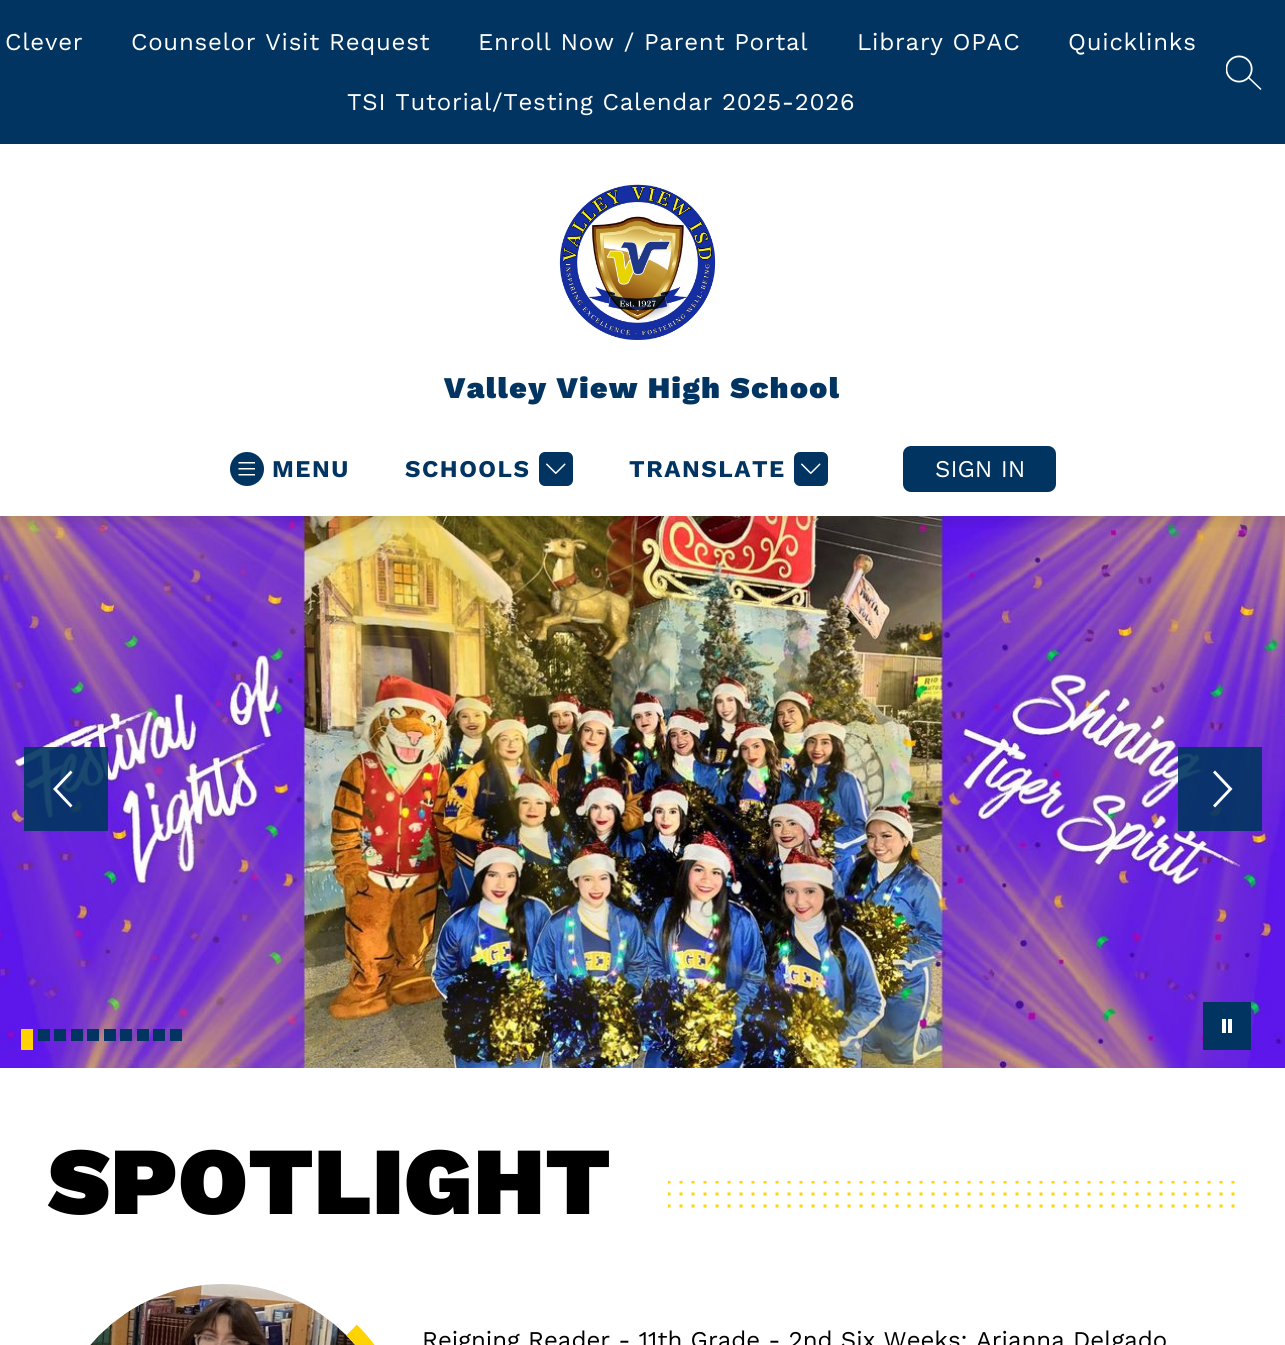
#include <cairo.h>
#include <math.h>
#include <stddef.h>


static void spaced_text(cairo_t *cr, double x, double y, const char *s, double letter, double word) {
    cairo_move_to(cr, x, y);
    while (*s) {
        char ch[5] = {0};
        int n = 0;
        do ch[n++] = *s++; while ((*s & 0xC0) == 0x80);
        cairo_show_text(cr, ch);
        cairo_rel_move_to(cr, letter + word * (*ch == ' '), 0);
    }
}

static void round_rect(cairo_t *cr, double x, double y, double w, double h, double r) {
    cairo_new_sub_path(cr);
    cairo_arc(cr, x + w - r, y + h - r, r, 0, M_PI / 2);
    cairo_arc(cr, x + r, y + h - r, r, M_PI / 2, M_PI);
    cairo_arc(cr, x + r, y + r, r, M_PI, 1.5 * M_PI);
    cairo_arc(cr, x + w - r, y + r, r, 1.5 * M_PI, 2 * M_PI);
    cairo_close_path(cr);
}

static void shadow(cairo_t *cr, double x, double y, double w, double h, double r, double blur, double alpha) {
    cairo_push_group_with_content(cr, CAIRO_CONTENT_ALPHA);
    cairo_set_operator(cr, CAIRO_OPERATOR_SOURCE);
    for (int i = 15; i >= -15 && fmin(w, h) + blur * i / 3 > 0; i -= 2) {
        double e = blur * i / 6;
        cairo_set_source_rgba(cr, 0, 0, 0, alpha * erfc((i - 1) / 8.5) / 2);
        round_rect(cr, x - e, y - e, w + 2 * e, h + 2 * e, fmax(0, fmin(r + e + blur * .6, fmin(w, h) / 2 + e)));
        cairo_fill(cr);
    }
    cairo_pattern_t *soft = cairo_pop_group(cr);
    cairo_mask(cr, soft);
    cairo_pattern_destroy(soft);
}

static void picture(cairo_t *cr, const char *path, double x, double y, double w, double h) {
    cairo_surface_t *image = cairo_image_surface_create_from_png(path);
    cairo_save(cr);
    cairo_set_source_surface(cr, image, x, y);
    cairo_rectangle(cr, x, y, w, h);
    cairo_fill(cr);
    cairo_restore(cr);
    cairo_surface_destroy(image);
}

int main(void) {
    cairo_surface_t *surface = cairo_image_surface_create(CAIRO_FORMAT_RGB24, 1285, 1345);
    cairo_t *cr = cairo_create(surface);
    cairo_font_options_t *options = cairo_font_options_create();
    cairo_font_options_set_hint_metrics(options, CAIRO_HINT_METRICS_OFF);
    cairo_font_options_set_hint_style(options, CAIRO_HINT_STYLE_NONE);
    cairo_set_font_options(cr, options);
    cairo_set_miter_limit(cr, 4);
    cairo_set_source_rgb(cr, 1, 1, 1);
    cairo_paint(cr);
    picture(cr, "img5.png", 0, 516, 1285, 552);
    cairo_save(cr);
    cairo_rectangle(cr, 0, 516, 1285, 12);
    cairo_clip(cr);
    cairo_set_source_rgb(cr, 0, 0, 0);
    shadow(cr, 0, 6, 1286, 516, 0, 7.5, 0.1);
    cairo_restore(cr);
    cairo_set_source_rgb(cr, 0.004, 0.204, 0.38);
    cairo_rectangle(cr, 0, 0, 1285, 144);
    cairo_fill(cr);
    cairo_select_font_face(cr, "Work Sans", CAIRO_FONT_SLANT_NORMAL, CAIRO_FONT_WEIGHT_NORMAL);
    cairo_set_font_size(cr, 24);
    cairo_set_source_rgb(cr, 1, 1, 1);
    spaced_text(cr, 5, 50, "Clever", 0.75, 0);
    spaced_text(cr, 131, 50, "Counselor Visit Request", 0.75, 0);
    spaced_text(cr, 478, 50, "Enroll Now / Parent Portal", 0.75, 0);
    spaced_text(cr, 857, 50, "Library OPAC", 0.75, 0);
    spaced_text(cr, 1068, 50, "Quicklinks", 0.75, 0);
    spaced_text(cr, 347, 110, "TSI Tutorial/Testing Calendar 2025-2026", 0.75, 0);
    picture(cr, "img1.png", 1226, 55, 36, 35);
    picture(cr, "img2.png", 559, 184, 157, 156);
    cairo_select_font_face(cr, "Work Sans Black", CAIRO_FONT_SLANT_NORMAL, CAIRO_FONT_WEIGHT_NORMAL);
    cairo_set_font_size(cr, 30);
    cairo_set_source_rgb(cr, 0.004, 0.204, 0.38);
    spaced_text(cr, 444, 398, "Valley View High School", 1.5, 0);
    picture(cr, "img3.png", 230, 452, 34, 34);
    cairo_select_font_face(cr, "Work Sans", CAIRO_FONT_SLANT_NORMAL, CAIRO_FONT_WEIGHT_BOLD);
    cairo_set_font_size(cr, 24);
    spaced_text(cr, 272, 477, "MENU", 1.5, 0);
    spaced_text(cr, 405, 477, "SCHOOLS", 1.5, 0);
    picture(cr, "img4.png", 539, 452, 34, 34);
    spaced_text(cr, 629, 477, "TRANSLATE", 1.5, 0);
    picture(cr, "img4.png", 794, 452, 34, 34);
    round_rect(cr, 904, 447, 151, 44, 7);
    cairo_fill_preserve(cr);
    cairo_stroke(cr);
    cairo_select_font_face(cr, "Work Sans", CAIRO_FONT_SLANT_NORMAL, CAIRO_FONT_WEIGHT_NORMAL);
    cairo_set_source_rgb(cr, 1, 1, 1);
    cairo_move_to(cr, 935, 477);
    cairo_show_text(cr, "SIGN IN");
    cairo_set_source_rgba(cr, 0.004, 0.204, 0.38, 0.9);
    cairo_rectangle(cr, 24, 747, 84, 84);
    cairo_fill(cr);
    cairo_set_source_rgb(cr, 1, 1, 1);
    cairo_set_fill_rule(cr, CAIRO_FILL_RULE_EVEN_ODD);
    cairo_new_path(cr);
    cairo_move_to(cr, 57, 789);
    cairo_line_to(cr, 72.5, 772.5);
    cairo_line_to(cr, 70.5, 770.5);
    cairo_line_to(cr, 53, 789);
    cairo_line_to(cr, 70.5, 807.5);
    cairo_line_to(cr, 72.5, 805.5);
    cairo_close_path(cr);
    cairo_fill(cr);
    cairo_set_source_rgba(cr, 0.004, 0.204, 0.38, 0.9);
    cairo_rectangle(cr, 1178, 747, 84, 84);
    cairo_fill(cr);
    cairo_set_source_rgb(cr, 1, 1, 1);
    cairo_new_path(cr);
    cairo_move_to(cr, 1228.5, 789);
    cairo_line_to(cr, 1213, 805.5);
    cairo_line_to(cr, 1215, 807.5);
    cairo_line_to(cr, 1232.5, 789);
    cairo_line_to(cr, 1215, 770.5);
    cairo_line_to(cr, 1213, 772.5);
    cairo_close_path(cr);
    cairo_fill(cr);
    cairo_set_source_rgb(cr, 1, 0.824, 0.008);
    cairo_rectangle(cr, 21, 1029, 12, 21);
    cairo_fill(cr);
    cairo_set_source_rgb(cr, 0.004, 0.204, 0.38);
    cairo_rectangle(cr, 38, 1029, 12, 12);
    cairo_fill(cr);
    cairo_rectangle(cr, 54, 1029, 12, 12);
    cairo_fill(cr);
    cairo_rectangle(cr, 71, 1029, 12, 12);
    cairo_fill(cr);
    cairo_rectangle(cr, 87, 1029, 12, 12);
    cairo_fill(cr);
    cairo_rectangle(cr, 104, 1029, 12, 12);
    cairo_fill(cr);
    cairo_rectangle(cr, 120, 1029, 12, 12);
    cairo_fill(cr);
    cairo_rectangle(cr, 137, 1029, 12, 12);
    cairo_fill(cr);
    cairo_rectangle(cr, 153, 1029, 12, 12);
    cairo_fill(cr);
    cairo_rectangle(cr, 170, 1029, 12, 12);
    cairo_fill(cr);
    cairo_rectangle(cr, 1203, 1002, 48, 48);
    cairo_fill(cr);
    cairo_set_source_rgb(cr, 1, 1, 1);
    cairo_new_path(cr);
    cairo_move_to(cr, 1226, 1019);
    cairo_line_to(cr, 1222, 1019);
    cairo_line_to(cr, 1222, 1033);
    cairo_line_to(cr, 1226, 1033);
    cairo_close_path(cr);
    cairo_move_to(cr, 1232, 1019);
    cairo_line_to(cr, 1228, 1019);
    cairo_line_to(cr, 1228, 1033);
    cairo_line_to(cr, 1232, 1033);
    cairo_close_path(cr);
    cairo_fill(cr);
    cairo_select_font_face(cr, "Work Sans Black", CAIRO_FONT_SLANT_NORMAL, CAIRO_FONT_WEIGHT_NORMAL);
    cairo_set_font_size(cr, 96);
    cairo_set_source_rgb(cr, 0, 0, 0);
    cairo_move_to(cr, 48, 1214);
    cairo_show_text(cr, "SPOTLIGHT");
    cairo_save(cr);
    cairo_set_fill_rule(cr, CAIRO_FILL_RULE_WINDING);
    cairo_rectangle(cr, 668, 1181, 570, 27);
    cairo_clip(cr);
    cairo_new_path(cr);
    cairo_move_to(cr, 667.5, 1182);
    cairo_line_to(cr, 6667.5, 1182);
    cairo_set_source_rgb(cr, 1, 0.824, 0.008);
    cairo_set_line_width(cr, 3);
    cairo_set_dash(cr, (double[]){3, 9}, 2, 0);
    cairo_stroke(cr);
    cairo_new_path(cr);
    cairo_move_to(cr, 667.5, 1194);
    cairo_line_to(cr, 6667.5, 1194);
    cairo_stroke(cr);
    cairo_new_path(cr);
    cairo_move_to(cr, 667.5, 1206);
    cairo_line_to(cr, 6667.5, 1206);
    cairo_stroke(cr);
    cairo_restore(cr);
    cairo_set_source_rgb(cr, 0.953, 0.953, 0.953);
    round_rect(cr, 48, 1284, 350, 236, 175);
    cairo_fill(cr);
    picture(cr, "img6.png", 90, 1284, 265, 61);
    cairo_new_path(cr);
    cairo_move_to(cr, 351.5, 1330);
    cairo_curve_to(cr, 377, 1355, 394.5, 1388, 401.5, 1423);
    cairo_curve_to(cr, 428.5, 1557.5, 301, 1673, 169.5, 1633);
    cairo_curve_to(cr, 141, 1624.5, 115, 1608.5, 94, 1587.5);
    cairo_set_source_rgb(cr, 1, 0.824, 0.008);
    cairo_set_line_width(cr, 15);
    cairo_stroke(cr);
    cairo_select_font_face(cr, "Work Sans", CAIRO_FONT_SLANT_NORMAL, CAIRO_FONT_WEIGHT_NORMAL);
    cairo_set_font_size(cr, 24);
    cairo_set_source_rgb(cr, 0, 0, 0);
    cairo_move_to(cr, 422, 1348);
    cairo_show_text(cr, "Reigning Reader - 11th Grade - 2nd Six Weeks: Arianna Delgado");
    cairo_surface_write_to_png(surface, "page.png");
    cairo_font_options_destroy(options);
    cairo_destroy(cr);
    cairo_surface_destroy(surface);
    return 0;
}
